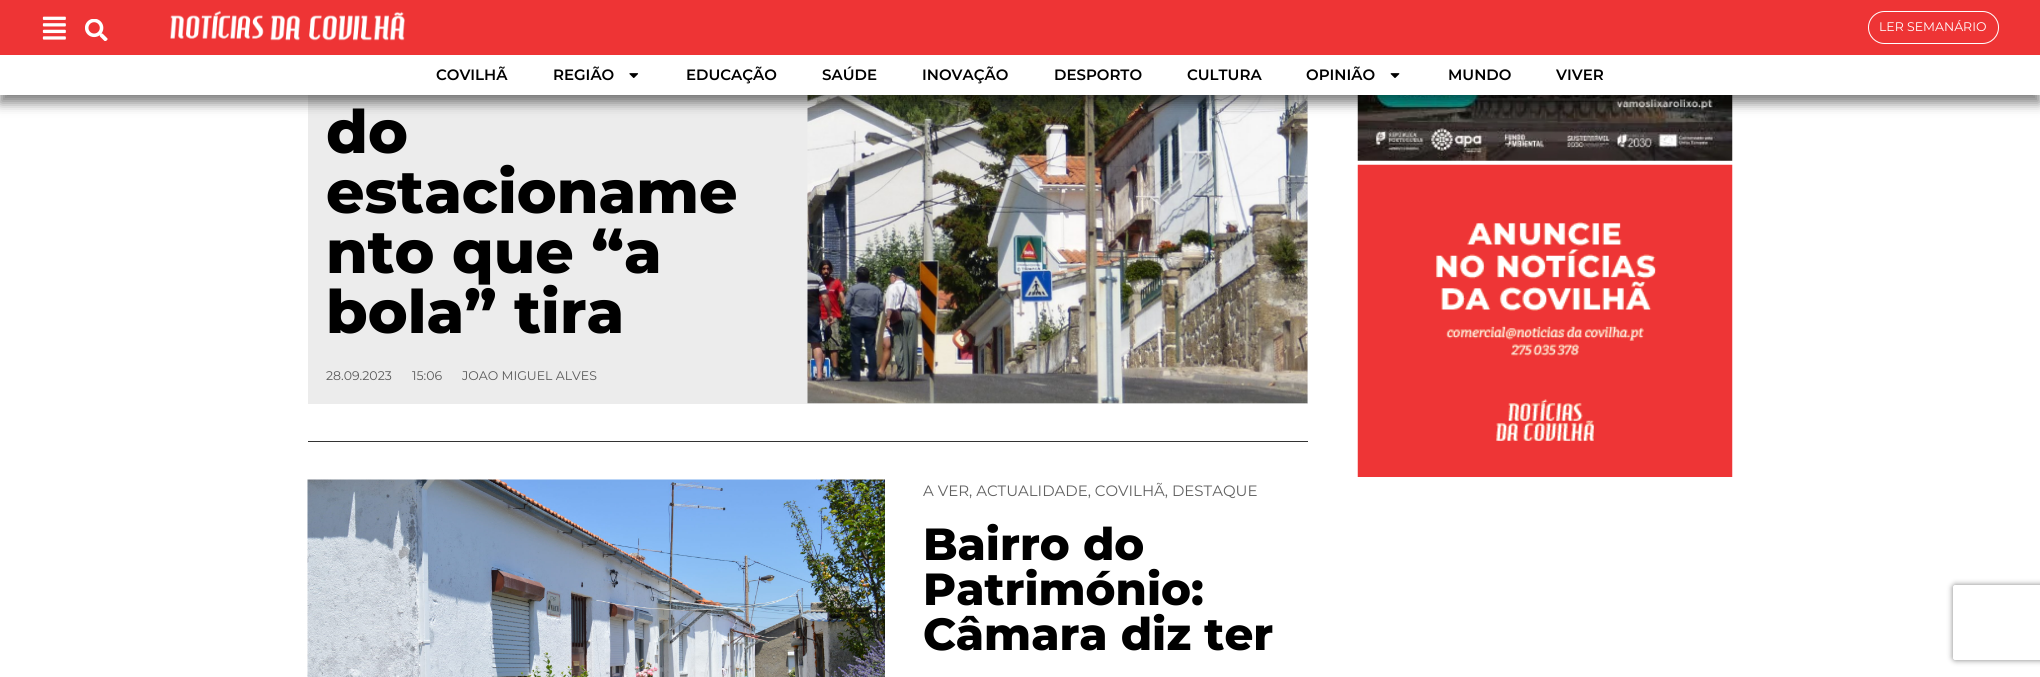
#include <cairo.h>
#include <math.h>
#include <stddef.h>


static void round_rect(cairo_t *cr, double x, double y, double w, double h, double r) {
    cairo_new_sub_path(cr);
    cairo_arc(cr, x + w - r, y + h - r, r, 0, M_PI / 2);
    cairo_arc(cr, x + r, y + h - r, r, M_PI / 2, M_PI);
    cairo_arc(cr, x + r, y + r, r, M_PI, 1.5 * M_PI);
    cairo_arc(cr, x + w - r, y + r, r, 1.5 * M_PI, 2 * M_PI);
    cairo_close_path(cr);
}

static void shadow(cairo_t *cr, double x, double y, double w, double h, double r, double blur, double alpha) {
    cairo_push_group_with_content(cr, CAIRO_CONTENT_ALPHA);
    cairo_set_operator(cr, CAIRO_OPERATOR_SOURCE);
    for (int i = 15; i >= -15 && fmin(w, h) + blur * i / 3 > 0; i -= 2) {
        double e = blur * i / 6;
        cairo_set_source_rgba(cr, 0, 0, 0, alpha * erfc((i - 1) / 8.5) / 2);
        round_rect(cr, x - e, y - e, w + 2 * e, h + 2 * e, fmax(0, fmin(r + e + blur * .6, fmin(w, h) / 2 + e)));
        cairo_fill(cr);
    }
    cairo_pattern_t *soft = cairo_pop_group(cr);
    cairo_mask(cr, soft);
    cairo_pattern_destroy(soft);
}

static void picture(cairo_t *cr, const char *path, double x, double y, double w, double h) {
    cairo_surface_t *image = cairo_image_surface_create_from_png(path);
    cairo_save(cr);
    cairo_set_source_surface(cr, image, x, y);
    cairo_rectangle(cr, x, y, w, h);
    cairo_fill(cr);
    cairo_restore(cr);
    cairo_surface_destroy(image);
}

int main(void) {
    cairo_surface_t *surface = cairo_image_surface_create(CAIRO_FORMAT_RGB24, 2040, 677);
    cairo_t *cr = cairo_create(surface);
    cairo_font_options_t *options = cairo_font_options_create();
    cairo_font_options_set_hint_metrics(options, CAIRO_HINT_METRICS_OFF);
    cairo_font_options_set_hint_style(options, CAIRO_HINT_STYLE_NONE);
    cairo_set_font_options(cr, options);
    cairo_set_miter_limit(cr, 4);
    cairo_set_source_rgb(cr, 1, 1, 1);
    cairo_paint(cr);
    cairo_set_source_rgb(cr, 0.922, 0.922, 0.922);
    cairo_rectangle(cr, 308, 95, 1000, 309);
    cairo_fill(cr);
    picture(cr, "img6.png", 807, 95, 501, 309);
    picture(cr, "img8.png", 1357, 95, 376, 66);
    cairo_set_source_rgb(cr, 0, 0, 0);
    shadow(cr, 0, 8, 2040, 95, 0, 6, 0.5);
    cairo_set_source_rgb(cr, 0.933, 0.204, 0.208);
    cairo_rectangle(cr, 0, 0, 2040, 55);
    cairo_fill(cr);
    picture(cr, "img1.png", 42, 16, 24, 24);
    picture(cr, "img2.png", 85, 19, 23, 22);
    picture(cr, "img3.png", 170, 10, 235, 31);
    round_rect(cr, 1868.5, 11.5, 130, 32, 16);
    cairo_set_source_rgb(cr, 1, 1, 1);
    cairo_set_line_width(cr, 1);
    cairo_stroke(cr);
    cairo_select_font_face(cr, "Montserrat", CAIRO_FONT_SLANT_NORMAL, CAIRO_FONT_WEIGHT_NORMAL);
    cairo_set_font_size(cr, 12.5);
    cairo_move_to(cr, 1879, 31);
    cairo_show_text(cr, "LER SEMANÁRIO");
    cairo_rectangle(cr, 0, 55, 2040, 40);
    cairo_fill(cr);
    cairo_select_font_face(cr, "Montserrat SemiBold", CAIRO_FONT_SLANT_NORMAL, CAIRO_FONT_WEIGHT_NORMAL);
    cairo_set_font_size(cr, 15);
    cairo_set_source_rgb(cr, 0, 0, 0);
    cairo_move_to(cr, 436, 80);
    cairo_show_text(cr, "COVILHÃ");
    cairo_move_to(cr, 553, 80);
    cairo_show_text(cr, "REGIÃO");
    picture(cr, "img4.png", 629, 73, 10, 5);
    cairo_move_to(cr, 686, 80);
    cairo_show_text(cr, "EDUCAÇÃO");
    cairo_move_to(cr, 822, 80);
    cairo_show_text(cr, "SAÚDE");
    cairo_move_to(cr, 922, 80);
    cairo_show_text(cr, "INOVAÇÃO");
    cairo_move_to(cr, 1054, 80);
    cairo_show_text(cr, "DESPORTO");
    cairo_move_to(cr, 1187, 80);
    cairo_show_text(cr, "CULTURA");
    cairo_move_to(cr, 1306, 80);
    cairo_show_text(cr, "OPINIÃO");
    picture(cr, "img5.png", 1390, 73, 10, 5);
    cairo_move_to(cr, 1448, 80);
    cairo_show_text(cr, "MUNDO");
    cairo_move_to(cr, 1556, 80);
    cairo_show_text(cr, "VIVER");
    cairo_select_font_face(cr, "Montserrat ExtraBold", CAIRO_FONT_SLANT_NORMAL, CAIRO_FONT_WEIGHT_NORMAL);
    cairo_set_font_size(cr, 60);
    cairo_move_to(cr, 326, 153);
    cairo_show_text(cr, "do");
    cairo_move_to(cr, 326, 213);
    cairo_show_text(cr, "estacioname");
    cairo_move_to(cr, 326, 273);
    cairo_show_text(cr, "nto que “a");
    cairo_move_to(cr, 326, 333);
    cairo_show_text(cr, "bola” tira");
    cairo_select_font_face(cr, "Montserrat", CAIRO_FONT_SLANT_NORMAL, CAIRO_FONT_WEIGHT_NORMAL);
    cairo_set_font_size(cr, 12.5);
    cairo_set_source_rgb(cr, 0.349, 0.349, 0.349);
    cairo_move_to(cr, 326, 380);
    cairo_show_text(cr, "28.09.2023");
    cairo_move_to(cr, 412, 380);
    cairo_show_text(cr, "15:06");
    cairo_move_to(cr, 462, 380);
    cairo_show_text(cr, "JOAO MIGUEL ALVES");
    cairo_set_source_rgb(cr, 0.2, 0.2, 0.2);
    cairo_rectangle(cr, 308, 441, 1000, 1);
    cairo_fill(cr);
    picture(cr, "img7.png", 307, 479, 578, 198);
    cairo_set_font_size(cr, 15);
    cairo_set_source_rgb(cr, 0.38, 0.38, 0.38);
    cairo_move_to(cr, 923, 496);
    cairo_show_text(cr, "A VER, ACTUALIDADE, COVILHÃ, DESTAQUE");
    cairo_select_font_face(cr, "Montserrat ExtraBold", CAIRO_FONT_SLANT_NORMAL, CAIRO_FONT_WEIGHT_NORMAL);
    cairo_set_font_size(cr, 45);
    cairo_set_source_rgb(cr, 0, 0, 0);
    cairo_move_to(cr, 923, 560);
    cairo_show_text(cr, "Bairro do");
    cairo_move_to(cr, 923, 605);
    cairo_show_text(cr, "Património:");
    cairo_move_to(cr, 923, 650);
    cairo_show_text(cr, "Câmara diz ter");
    picture(cr, "img9.png", 1357, 164, 376, 313);
    cairo_save(cr);
    cairo_set_fill_rule(cr, CAIRO_FILL_RULE_EVEN_ODD);
    cairo_new_path(cr);
    cairo_move_to(cr, 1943, 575);
    cairo_line_to(cr, 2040, 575);
    cairo_line_to(cr, 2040, 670);
    cairo_line_to(cr, 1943, 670);
    cairo_close_path(cr);
    cairo_move_to(cr, 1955.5, 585);
    cairo_line_to(cr, 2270.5, 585);
    cairo_curve_to(cr, 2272, 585, 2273, 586, 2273, 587.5);
    cairo_line_to(cr, 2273, 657.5);
    cairo_curve_to(cr, 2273, 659, 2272, 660, 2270.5, 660);
    cairo_line_to(cr, 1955.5, 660);
    cairo_curve_to(cr, 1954, 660, 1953, 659, 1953, 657.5);
    cairo_line_to(cr, 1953, 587.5);
    cairo_curve_to(cr, 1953, 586, 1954, 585, 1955.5, 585);
    cairo_close_path(cr);
    cairo_clip(cr);
    cairo_set_source_rgb(cr, 0.502, 0.502, 0.502);
    shadow(cr, 1953, 585, 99, 75, 2.5, 3, 1);
    cairo_restore(cr);
    cairo_surface_write_to_png(surface, "page.png");
    cairo_font_options_destroy(options);
    cairo_destroy(cr);
    cairo_surface_destroy(surface);
    return 0;
}
